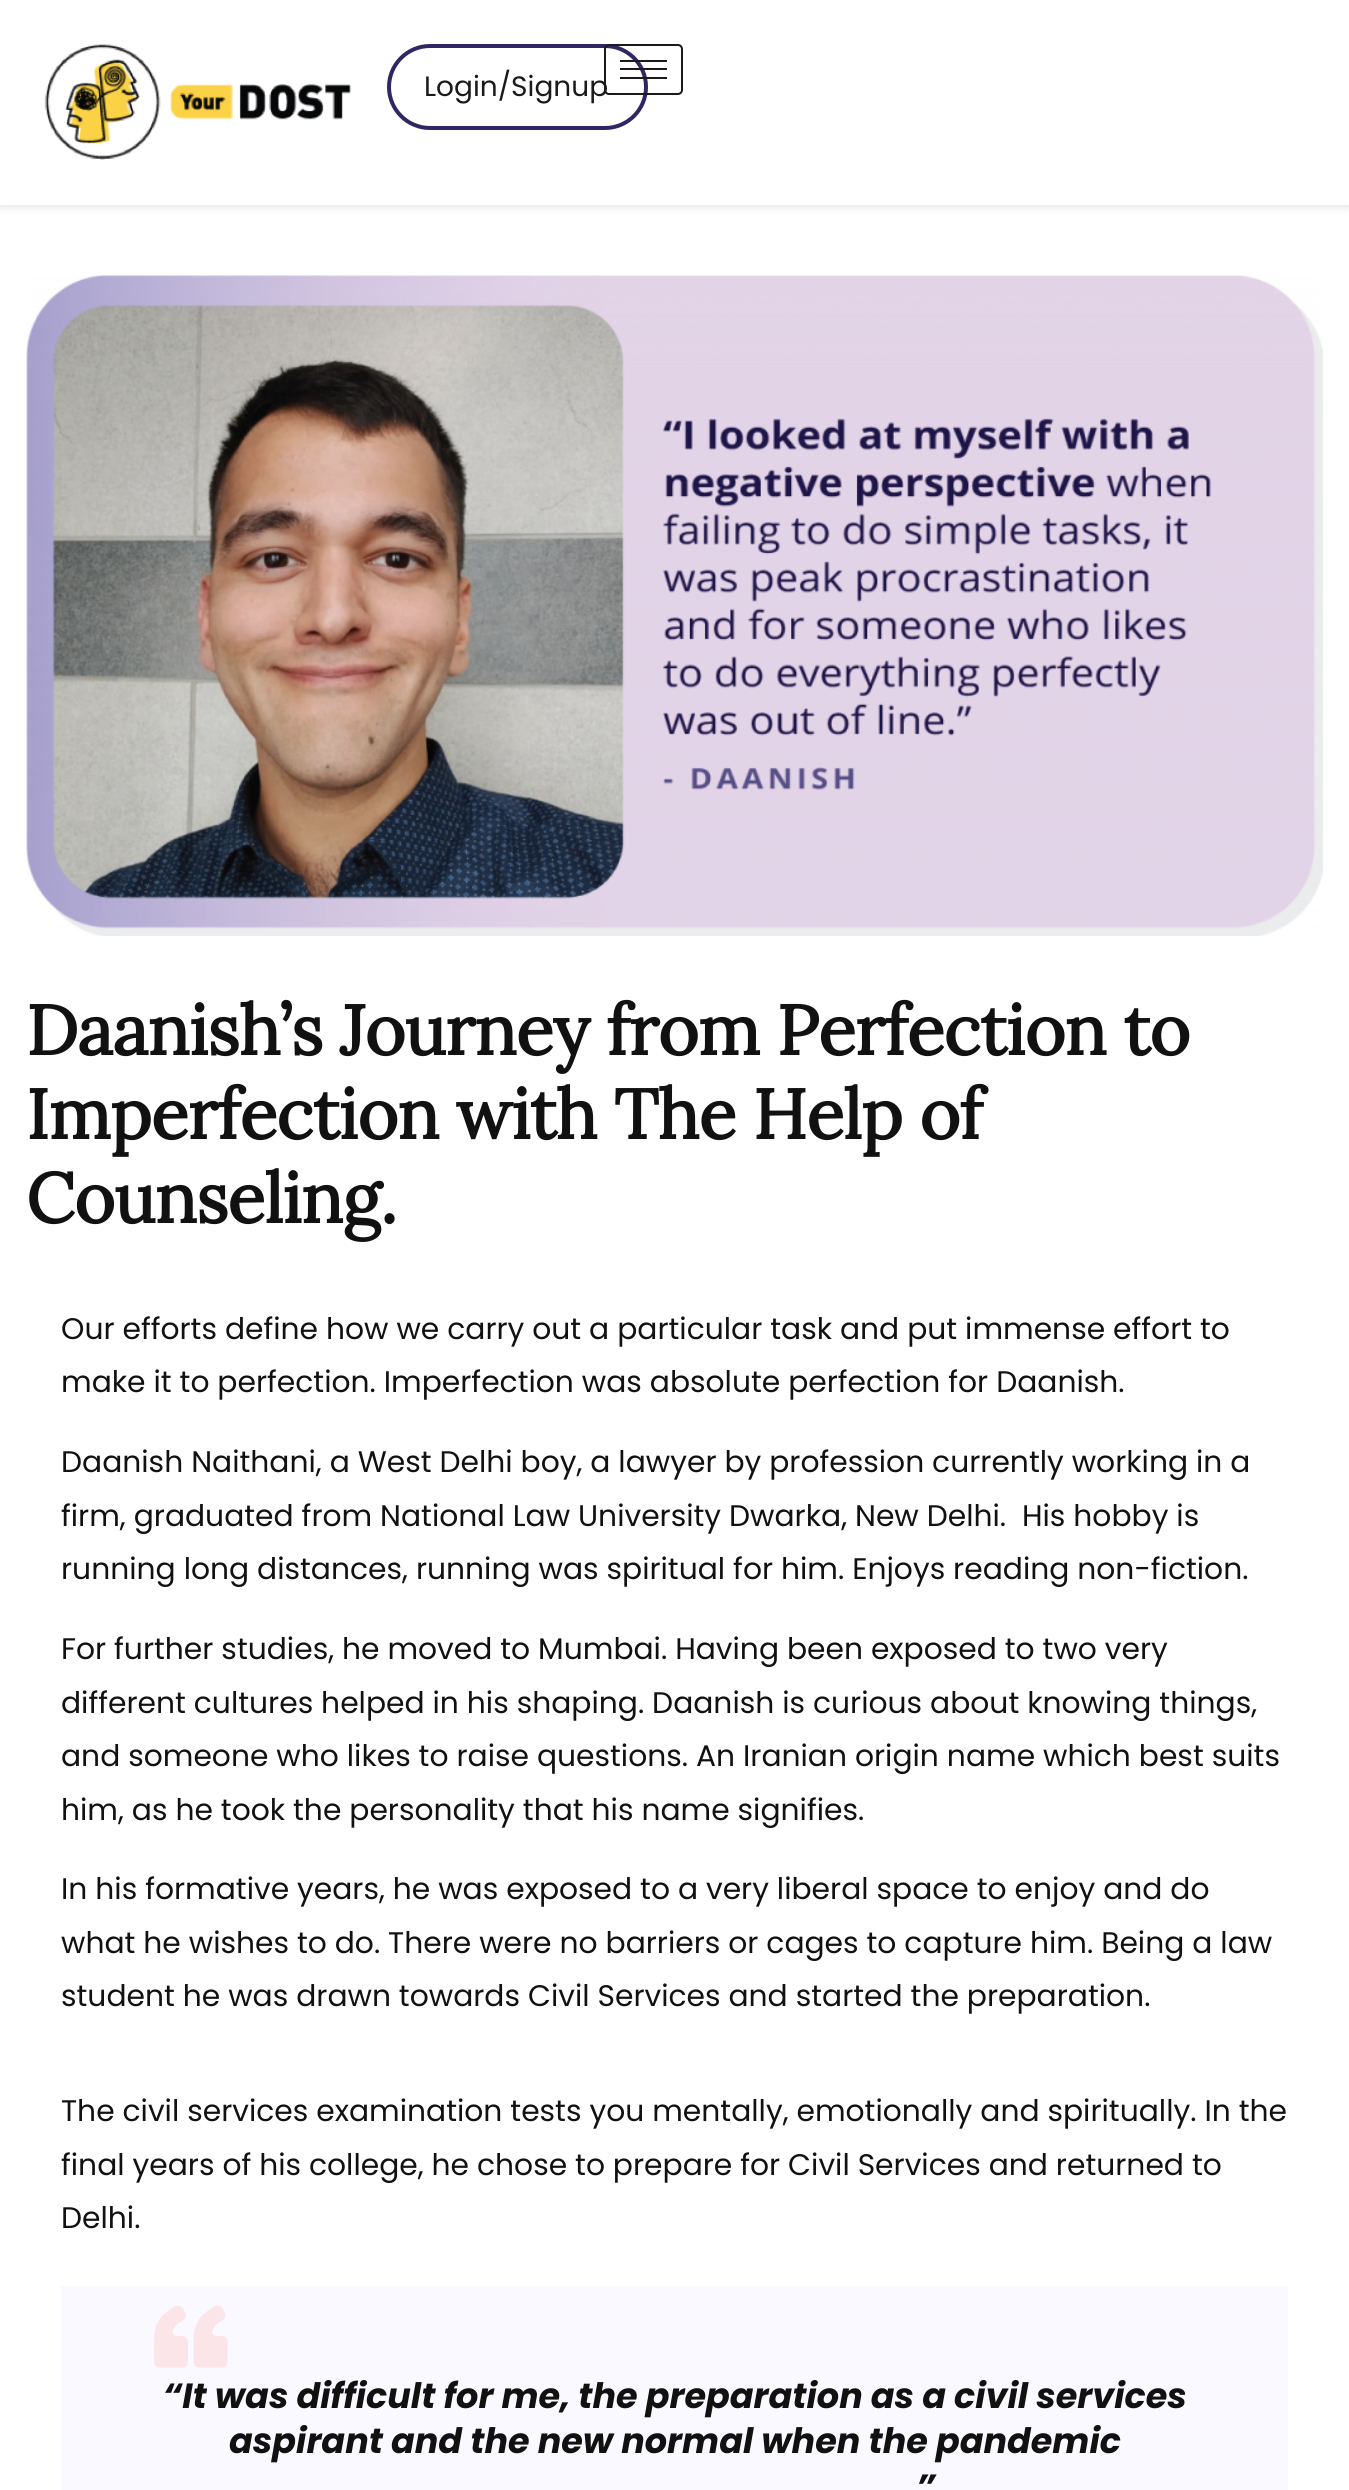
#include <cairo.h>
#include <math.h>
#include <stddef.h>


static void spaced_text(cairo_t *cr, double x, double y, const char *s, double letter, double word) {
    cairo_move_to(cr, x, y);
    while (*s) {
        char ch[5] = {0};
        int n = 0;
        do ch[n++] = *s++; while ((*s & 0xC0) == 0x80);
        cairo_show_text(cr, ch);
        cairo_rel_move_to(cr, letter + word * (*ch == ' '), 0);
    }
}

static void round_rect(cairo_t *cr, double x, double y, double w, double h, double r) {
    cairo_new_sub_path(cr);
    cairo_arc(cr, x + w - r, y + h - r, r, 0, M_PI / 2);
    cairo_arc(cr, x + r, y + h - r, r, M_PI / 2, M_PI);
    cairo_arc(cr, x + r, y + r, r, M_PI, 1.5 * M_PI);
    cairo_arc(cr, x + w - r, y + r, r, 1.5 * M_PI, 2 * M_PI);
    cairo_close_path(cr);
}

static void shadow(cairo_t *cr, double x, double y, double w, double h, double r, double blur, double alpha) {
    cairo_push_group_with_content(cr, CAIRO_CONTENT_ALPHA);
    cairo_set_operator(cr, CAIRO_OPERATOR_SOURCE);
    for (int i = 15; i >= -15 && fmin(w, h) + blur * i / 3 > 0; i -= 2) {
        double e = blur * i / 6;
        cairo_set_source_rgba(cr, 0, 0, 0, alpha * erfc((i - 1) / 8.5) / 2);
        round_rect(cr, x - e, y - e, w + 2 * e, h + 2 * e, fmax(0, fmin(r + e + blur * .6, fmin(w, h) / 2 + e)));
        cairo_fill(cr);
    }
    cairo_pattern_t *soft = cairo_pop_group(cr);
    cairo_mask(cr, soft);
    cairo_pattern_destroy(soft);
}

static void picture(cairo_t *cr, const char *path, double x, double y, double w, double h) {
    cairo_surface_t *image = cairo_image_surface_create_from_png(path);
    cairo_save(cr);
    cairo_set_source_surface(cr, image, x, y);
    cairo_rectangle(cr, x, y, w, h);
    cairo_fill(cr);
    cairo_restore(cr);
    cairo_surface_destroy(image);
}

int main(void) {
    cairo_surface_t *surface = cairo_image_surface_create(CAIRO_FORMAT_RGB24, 1349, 2490);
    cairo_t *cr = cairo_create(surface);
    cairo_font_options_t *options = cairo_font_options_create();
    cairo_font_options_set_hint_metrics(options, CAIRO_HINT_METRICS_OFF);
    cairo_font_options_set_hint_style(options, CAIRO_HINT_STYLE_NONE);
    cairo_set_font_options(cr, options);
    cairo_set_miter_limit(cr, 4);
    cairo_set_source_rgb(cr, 1, 1, 1);
    cairo_paint(cr);
    cairo_set_source_rgb(cr, 0.067, 0.086, 0.2);
    shadow(cr, 0, 4, 1349, 204, 0, 3.5, 0.1);
    cairo_set_source_rgb(cr, 1, 1, 1);
    cairo_rectangle(cr, 0, 0, 1349, 205);
    cairo_fill(cr);
    picture(cr, "img1.png", 44, 44, 308, 116);
    round_rect(cr, 389, 46, 257, 82, 41);
    cairo_set_source_rgb(cr, 0.184, 0.149, 0.388);
    cairo_set_line_width(cr, 4);
    cairo_stroke(cr);
    cairo_select_font_face(cr, "Poppins", CAIRO_FONT_SLANT_NORMAL, CAIRO_FONT_WEIGHT_NORMAL);
    cairo_set_font_size(cr, 28);
    cairo_set_source_rgb(cr, 0.102, 0.102, 0.102);
    cairo_move_to(cr, 424, 96);
    cairo_show_text(cr, "Login/Signup");
    round_rect(cr, 605, 45, 77, 49, 4);
    cairo_set_source_rgb(cr, 0.114, 0.094, 0.102);
    cairo_set_line_width(cr, 2);
    cairo_stroke(cr);
    cairo_rectangle(cr, 620, 60, 47, 2);
    cairo_fill(cr);
    cairo_rectangle(cr, 620, 68, 47, 2);
    cairo_fill(cr);
    cairo_rectangle(cr, 620, 77, 47, 2);
    cairo_fill(cr);
    picture(cr, "img2.png", 26, 275, 1297, 661);
    cairo_select_font_face(cr, "Lora", CAIRO_FONT_SLANT_NORMAL, CAIRO_FONT_WEIGHT_BOLD);
    cairo_set_font_size(cr, 70);
    cairo_set_source_rgb(cr, 0.067, 0.067, 0.067);
    spaced_text(cr, 26, 1055, "Daanish’s Journey from Perfection to", -1.05, 0);
    spaced_text(cr, 26, 1139, "Imperfection with The Help of", -1.05, 0);
    spaced_text(cr, 26, 1223, "Counseling.", -1.05, 0);
    cairo_select_font_face(cr, "Poppins", CAIRO_FONT_SLANT_NORMAL, CAIRO_FONT_WEIGHT_NORMAL);
    cairo_set_font_size(cr, 29.75);
    cairo_move_to(cr, 61, 1339);
    cairo_show_text(cr, "Our efforts define how we carry out a particular task and put immense effort to");
    cairo_move_to(cr, 61, 1392);
    cairo_show_text(cr, "make it to perfection. Imperfection was absolute perfection for Daanish.");
    cairo_move_to(cr, 61, 1472);
    cairo_show_text(cr, "Daanish Naithani, a West Delhi boy, a lawyer by profession currently working in a");
    cairo_move_to(cr, 61, 1526);
    cairo_show_text(cr, "firm, graduated from National Law University Dwarka, New Delhi.  His hobby is");
    cairo_move_to(cr, 61, 1579);
    cairo_show_text(cr, "running long distances, running was spiritual for him. Enjoys reading non-fiction.");
    cairo_move_to(cr, 61, 1659);
    cairo_show_text(cr, "For further studies, he moved to Mumbai. Having been exposed to two very");
    cairo_move_to(cr, 61, 1713);
    cairo_show_text(cr, "different cultures helped in his shaping. Daanish is curious about knowing things,");
    cairo_move_to(cr, 61, 1766);
    cairo_show_text(cr, "and someone who likes to raise questions. An Iranian origin name which best suits");
    cairo_move_to(cr, 61, 1820);
    cairo_show_text(cr, "him, as he took the personality that his name signifies.");
    cairo_move_to(cr, 61, 1899);
    cairo_show_text(cr, "In his formative years, he was exposed to a very liberal space to enjoy and do");
    cairo_move_to(cr, 61, 1953);
    cairo_show_text(cr, "what he wishes to do. There were no barriers or cages to capture him. Being a law");
    cairo_move_to(cr, 61, 2006);
    cairo_show_text(cr, "student he was drawn towards Civil Services and started the preparation.");
    cairo_move_to(cr, 61, 2121);
    cairo_show_text(cr, "The civil services examination tests you mentally, emotionally and spiritually. In the");
    cairo_move_to(cr, 61, 2175);
    cairo_show_text(cr, "final years of his college, he chose to prepare for Civil Services and returned to");
    cairo_move_to(cr, 61, 2228);
    cairo_show_text(cr, "Delhi.");
    cairo_set_source_rgb(cr, 0.98, 0.976, 1);
    cairo_rectangle(cr, 61, 2286, 1227, 204);
    cairo_fill(cr);
    picture(cr, "img3.png", 154, 2305, 74, 63);
    cairo_select_font_face(cr, "Poppins", CAIRO_FONT_SLANT_ITALIC, CAIRO_FONT_WEIGHT_BOLD);
    cairo_set_font_size(cr, 35);
    cairo_set_source_rgb(cr, 0.067, 0.067, 0.067);
    cairo_move_to(cr, 163, 2408);
    cairo_show_text(cr, "“It was difficult for me, the preparation as a civil services");
    cairo_move_to(cr, 229, 2453);
    cairo_show_text(cr, "aspirant and the new normal when the pandemic");
    cairo_move_to(cr, 916, 2499);
    cairo_show_text(cr, "”");
    cairo_surface_write_to_png(surface, "page.png");
    cairo_font_options_destroy(options);
    cairo_destroy(cr);
    cairo_surface_destroy(surface);
    return 0;
}
